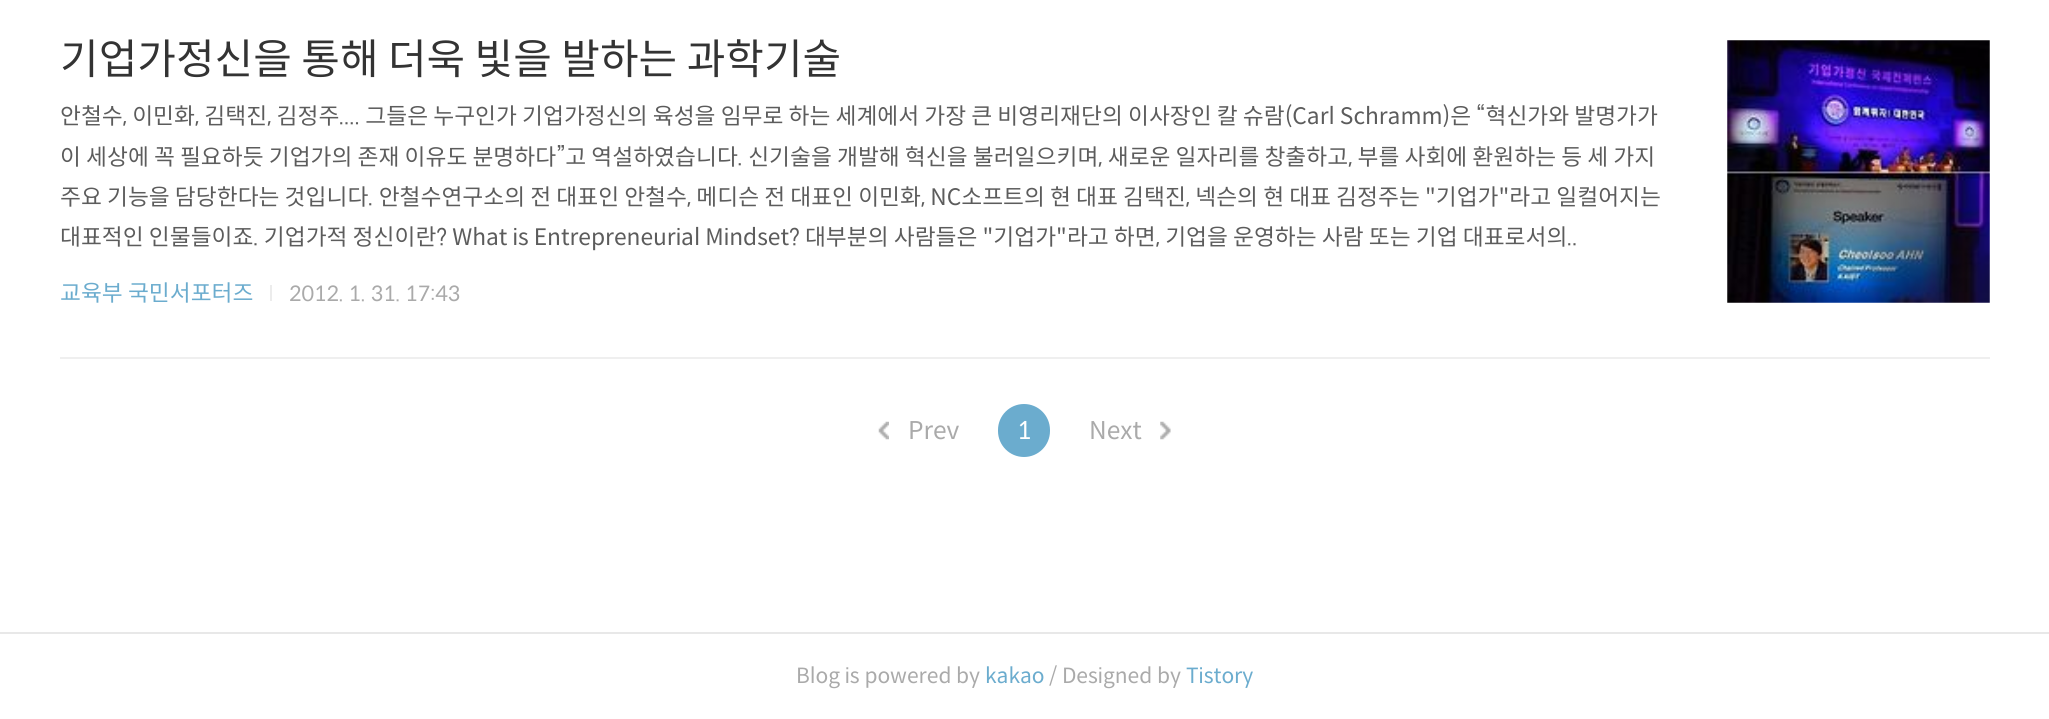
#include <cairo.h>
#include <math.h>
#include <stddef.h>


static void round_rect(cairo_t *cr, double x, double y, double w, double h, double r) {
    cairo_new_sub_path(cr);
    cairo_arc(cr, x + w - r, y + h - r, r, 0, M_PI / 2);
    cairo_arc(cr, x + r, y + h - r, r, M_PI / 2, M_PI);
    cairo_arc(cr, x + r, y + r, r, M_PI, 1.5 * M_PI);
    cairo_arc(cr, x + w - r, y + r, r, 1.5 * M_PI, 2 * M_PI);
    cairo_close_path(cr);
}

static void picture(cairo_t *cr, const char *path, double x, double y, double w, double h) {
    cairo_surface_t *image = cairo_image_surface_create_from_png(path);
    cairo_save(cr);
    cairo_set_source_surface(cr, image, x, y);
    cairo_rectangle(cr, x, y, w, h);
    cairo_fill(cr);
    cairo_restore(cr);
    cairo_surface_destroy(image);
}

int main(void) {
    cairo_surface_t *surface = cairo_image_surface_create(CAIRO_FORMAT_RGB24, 2049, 719);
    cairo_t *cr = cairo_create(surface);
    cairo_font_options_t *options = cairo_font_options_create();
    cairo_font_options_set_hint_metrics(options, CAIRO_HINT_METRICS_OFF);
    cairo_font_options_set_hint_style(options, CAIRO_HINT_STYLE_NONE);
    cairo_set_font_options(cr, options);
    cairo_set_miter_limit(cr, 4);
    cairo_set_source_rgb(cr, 1, 1, 1);
    cairo_paint(cr);
    cairo_set_source_rgb(cr, 0.937, 0.937, 0.937);
    cairo_rectangle(cr, 60, 357, 1930, 2);
    cairo_fill(cr);
    cairo_select_font_face(cr, "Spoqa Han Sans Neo", CAIRO_FONT_SLANT_NORMAL, CAIRO_FONT_WEIGHT_NORMAL);
    cairo_set_font_size(cr, 42);
    cairo_set_source_rgb(cr, 0.2, 0.2, 0.2);
    cairo_move_to(cr, 60, 74);
    cairo_show_text(cr, "기업가정신을 통해 더욱 빛을 발하는 과학기술");
    cairo_set_font_size(cr, 22.75);
    cairo_set_source_rgb(cr, 0.361, 0.361, 0.361);
    cairo_move_to(cr, 60, 124);
    cairo_show_text(cr, "안철수, 이민화, 김택진, 김정주.... 그들은 누구인가 기업가정신의 육성을 임무로 하는 세계에서 가장 큰 비영리재단의 이사장인 칼 슈람(Carl Schramm)은 “혁신가와 발명가가");
    cairo_move_to(cr, 60, 165);
    cairo_show_text(cr, "이 세상에 꼭 필요하듯 기업가의 존재 이유도 분명하다”고 역설하였습니다. 신기술을 개발해 혁신을 불러일으키며, 새로운 일자리를 창출하고, 부를 사회에 환원하는 등 세 가지");
    cairo_move_to(cr, 60, 205);
    cairo_show_text(cr, "주요 기능을 담당한다는 것입니다. 안철수연구소의 전 대표인 안철수, 메디슨 전 대표인 이민화, NC소프트의 현 대표 김택진, 넥슨의 현 대표 김정주는 \"기업가\"라고 일컬어지는");
    cairo_move_to(cr, 60, 245);
    cairo_show_text(cr, "대표적인 인물들이죠. 기업가적 정신이란? What is Entrepreneurial Mindset? 대부분의 사람들은 \"기업가\"라고 하면, 기업을 운영하는 사람 또는 기업 대표로서의..");
    picture(cr, "img1.png", 1727, 40, 263, 263);
    cairo_set_source_rgb(cr, 0.42, 0.675, 0.808);
    cairo_move_to(cr, 60, 301);
    cairo_show_text(cr, "교육부 국민서포터즈");
    cairo_set_source_rgb(cr, 0.922, 0.922, 0.922);
    cairo_rectangle(cr, 270, 285, 2, 16);
    cairo_fill(cr);
    cairo_set_font_size(cr, 21);
    cairo_set_source_rgb(cr, 0.667, 0.667, 0.667);
    cairo_move_to(cr, 289, 301);
    cairo_show_text(cr, "2012. 1. 31. 17:43");
    picture(cr, "img2.png", 878, 421, 11, 19);
    cairo_set_font_size(cr, 24.5);
    cairo_move_to(cr, 908, 439);
    cairo_show_text(cr, "Prev");
    cairo_set_source_rgb(cr, 0.42, 0.675, 0.808);
    round_rect(cr, 998, 404, 52, 53, 26);
    cairo_fill(cr);
    cairo_set_source_rgb(cr, 1, 1, 1);
    cairo_move_to(cr, 1017, 439);
    cairo_show_text(cr, "1");
    cairo_set_source_rgb(cr, 0.667, 0.667, 0.667);
    cairo_move_to(cr, 1089, 439);
    cairo_show_text(cr, "Next");
    picture(cr, "img3.png", 1160, 421, 11, 19);
    cairo_set_source_rgb(cr, 0.91, 0.91, 0.91);
    cairo_rectangle(cr, 0, 632, 2049, 2);
    cairo_fill(cr);
    cairo_set_font_size(cr, 21);
    cairo_set_source_rgb(cr, 0.667, 0.667, 0.667);
    cairo_move_to(cr, 796, 683);
    cairo_show_text(cr, "Blog is powered by");
    cairo_set_source_rgb(cr, 0.42, 0.675, 0.808);
    cairo_move_to(cr, 985, 683);
    cairo_show_text(cr, "kakao");
    cairo_set_source_rgb(cr, 0.667, 0.667, 0.667);
    cairo_move_to(cr, 1049, 683);
    cairo_show_text(cr, "/ Designed by");
    cairo_set_source_rgb(cr, 0.42, 0.675, 0.808);
    cairo_move_to(cr, 1186, 683);
    cairo_show_text(cr, "Tistory");
    cairo_surface_write_to_png(surface, "page.png");
    cairo_font_options_destroy(options);
    cairo_destroy(cr);
    cairo_surface_destroy(surface);
    return 0;
}
